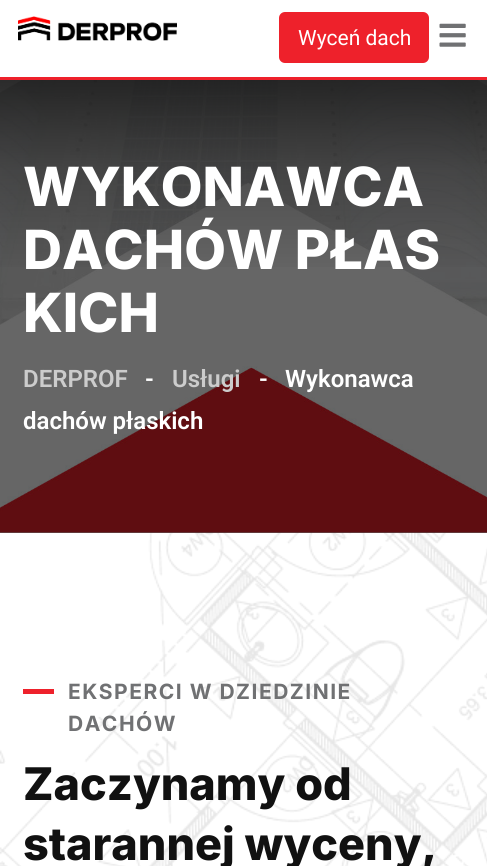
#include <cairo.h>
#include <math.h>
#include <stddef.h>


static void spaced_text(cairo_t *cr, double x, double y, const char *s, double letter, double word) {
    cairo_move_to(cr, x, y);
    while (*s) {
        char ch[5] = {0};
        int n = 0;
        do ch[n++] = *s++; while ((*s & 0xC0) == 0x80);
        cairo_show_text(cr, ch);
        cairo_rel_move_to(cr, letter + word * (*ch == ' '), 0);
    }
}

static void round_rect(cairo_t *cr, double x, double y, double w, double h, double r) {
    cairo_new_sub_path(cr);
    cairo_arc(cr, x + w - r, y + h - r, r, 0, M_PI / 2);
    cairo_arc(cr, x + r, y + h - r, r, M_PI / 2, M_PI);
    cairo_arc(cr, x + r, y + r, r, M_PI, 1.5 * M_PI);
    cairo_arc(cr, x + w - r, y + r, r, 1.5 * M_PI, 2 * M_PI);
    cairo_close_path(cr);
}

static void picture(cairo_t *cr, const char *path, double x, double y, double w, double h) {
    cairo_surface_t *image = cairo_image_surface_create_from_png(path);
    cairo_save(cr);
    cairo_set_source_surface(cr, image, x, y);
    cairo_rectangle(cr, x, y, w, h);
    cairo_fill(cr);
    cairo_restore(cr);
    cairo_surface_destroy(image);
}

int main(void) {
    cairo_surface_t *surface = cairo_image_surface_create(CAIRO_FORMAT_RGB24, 487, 866);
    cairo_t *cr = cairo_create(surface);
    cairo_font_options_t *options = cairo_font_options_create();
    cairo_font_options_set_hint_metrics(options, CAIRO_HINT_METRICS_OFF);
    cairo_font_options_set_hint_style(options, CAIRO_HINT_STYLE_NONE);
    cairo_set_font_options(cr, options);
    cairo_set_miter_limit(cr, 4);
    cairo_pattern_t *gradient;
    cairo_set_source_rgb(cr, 1, 1, 1);
    cairo_paint(cr);
    cairo_set_source_rgb(cr, 0.933, 0.129, 0.169);
    cairo_rectangle(cr, 0, 77, 487, 3);
    cairo_fill(cr);
    picture(cr, "img1.png", 18, 16, 159, 25);
    round_rect(cr, 279, 12, 150, 51, 6);
    cairo_fill(cr);
    cairo_select_font_face(cr, "Roboto", CAIRO_FONT_SLANT_NORMAL, CAIRO_FONT_WEIGHT_NORMAL);
    cairo_set_font_size(cr, 21);
    cairo_set_source_rgb(cr, 1, 1, 1);
    cairo_move_to(cr, 298, 45);
    cairo_show_text(cr, "Wyceń dach");
    picture(cr, "img2.png", 439, 23, 27, 24);
    picture(cr, "img3.png", 0, 80, 487, 453);
    picture(cr, "img4.png", 0, 532, 487, 334);
    cairo_set_source_rgba(cr, 0, 0, 0, 0.6);
    cairo_rectangle(cr, 0, 80, 487, 453);
    cairo_fill(cr);
    gradient = cairo_pattern_create_linear(244, 79, 244, 533);
    cairo_pattern_add_color_stop_rgba(gradient, 0, 0, 0, 0, 0.58);
    cairo_pattern_add_color_stop_rgba(gradient, 0.2, 0, 0, 0, 0.23);
    cairo_pattern_add_color_stop_rgba(gradient, 0.44, 0, 0, 0, 0);
    cairo_set_source(cr, gradient);
    cairo_pattern_destroy(gradient);
    cairo_rectangle(cr, 0, 80, 487, 187);
    cairo_fill(cr);
    cairo_select_font_face(cr, "Inter ExtraBold", CAIRO_FONT_SLANT_NORMAL, CAIRO_FONT_WEIGHT_NORMAL);
    cairo_set_font_size(cr, 54);
    cairo_set_source_rgb(cr, 1, 1, 1);
    cairo_move_to(cr, 23, 206);
    cairo_show_text(cr, "WYKONAWCA");
    cairo_move_to(cr, 23, 269);
    cairo_show_text(cr, "DACHÓW PŁAS");
    cairo_move_to(cr, 23, 332);
    cairo_show_text(cr, "KICH");
    cairo_select_font_face(cr, "Roboto SemiBold", CAIRO_FONT_SLANT_NORMAL, CAIRO_FONT_WEIGHT_NORMAL);
    cairo_set_font_size(cr, 24);
    cairo_set_source_rgb(cr, 0.8, 0.8, 0.8);
    cairo_move_to(cr, 23, 387);
    cairo_show_text(cr, "DERPROF");
    cairo_set_source_rgb(cr, 1, 1, 1);
    cairo_move_to(cr, 145, 387);
    cairo_show_text(cr, "-");
    cairo_set_source_rgb(cr, 0.8, 0.8, 0.8);
    cairo_move_to(cr, 172, 387);
    cairo_show_text(cr, "Usługi");
    cairo_set_source_rgb(cr, 1, 1, 1);
    cairo_move_to(cr, 259, 387);
    cairo_show_text(cr, "-");
    cairo_move_to(cr, 285, 387);
    cairo_show_text(cr, "Wykonawca");
    cairo_move_to(cr, 23, 429);
    cairo_show_text(cr, "dachów płaskich");
    cairo_set_source_rgb(cr, 0.933, 0.129, 0.169);
    cairo_rectangle(cr, 23, 689, 31, 5);
    cairo_fill(cr);
    cairo_select_font_face(cr, "Inter", CAIRO_FONT_SLANT_NORMAL, CAIRO_FONT_WEIGHT_BOLD);
    cairo_set_font_size(cr, 21);
    cairo_set_source_rgb(cr, 0.439, 0.443, 0.451);
    spaced_text(cr, 68, 699, "EKSPERCI W DZIEDZINIE", 1.5, 0);
    spaced_text(cr, 68, 731, "DACHÓW", 1.5, 0);
    cairo_select_font_face(cr, "Inter ExtraBold", CAIRO_FONT_SLANT_NORMAL, CAIRO_FONT_WEIGHT_NORMAL);
    cairo_set_font_size(cr, 45);
    cairo_set_source_rgb(cr, 0.067, 0.067, 0.067);
    cairo_move_to(cr, 23, 800);
    cairo_show_text(cr, "Zaczynamy od");
    cairo_move_to(cr, 23, 860);
    cairo_show_text(cr, "starannej wyceny,");
    cairo_surface_write_to_png(surface, "page.png");
    cairo_font_options_destroy(options);
    cairo_destroy(cr);
    cairo_surface_destroy(surface);
    return 0;
}
